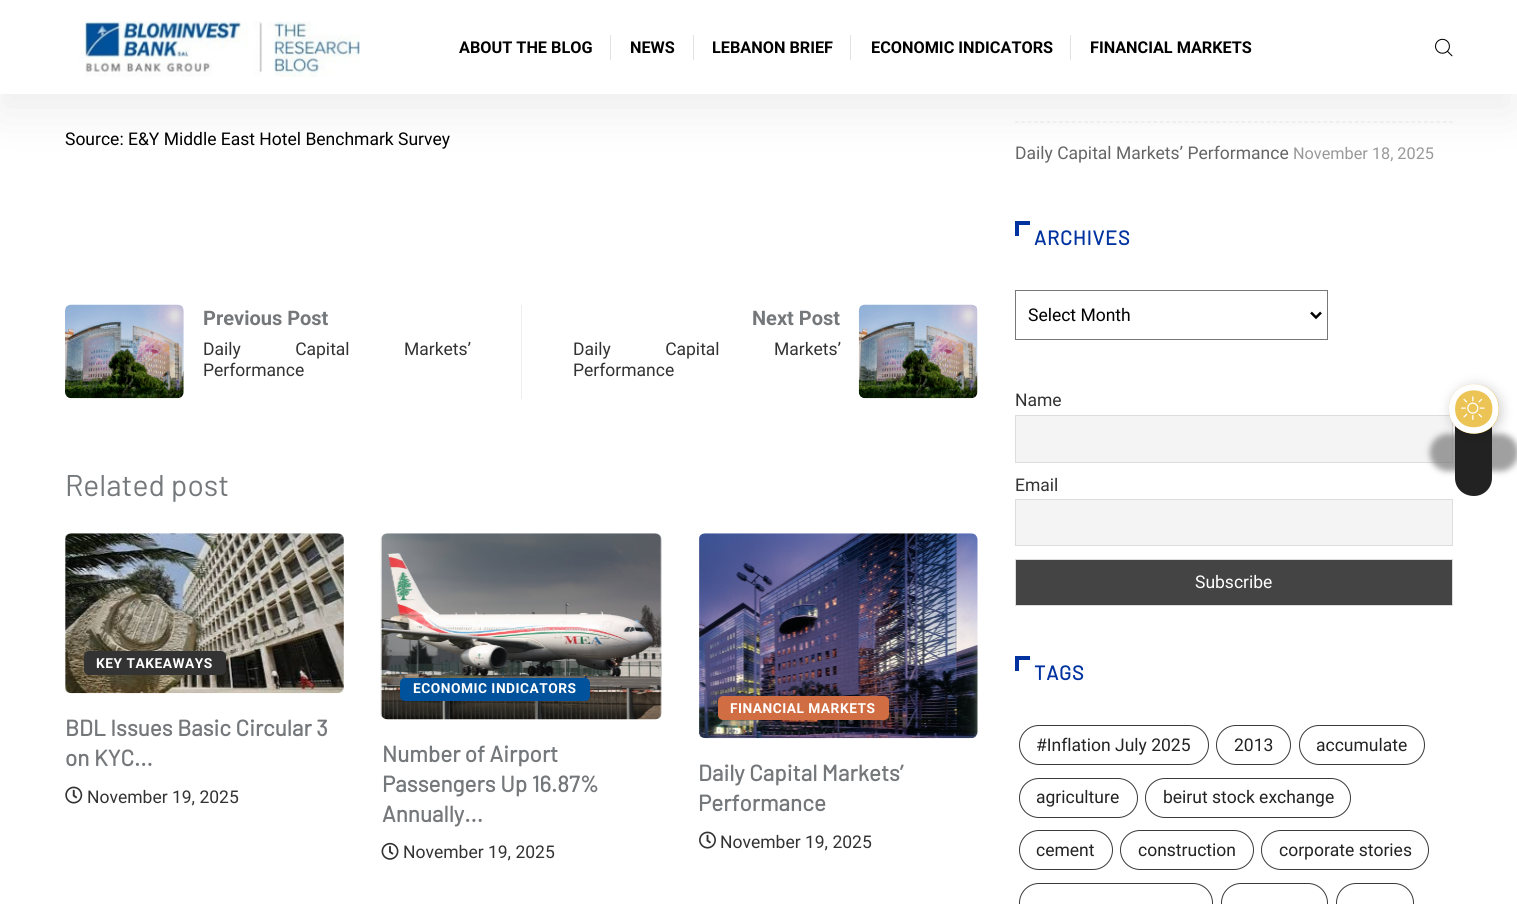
#include <cairo.h>
#include <math.h>
#include <stddef.h>


static void spaced_text(cairo_t *cr, double x, double y, const char *s, double letter, double word) {
    cairo_move_to(cr, x, y);
    while (*s) {
        char ch[5] = {0};
        int n = 0;
        do ch[n++] = *s++; while ((*s & 0xC0) == 0x80);
        cairo_show_text(cr, ch);
        cairo_rel_move_to(cr, letter + word * (*ch == ' '), 0);
    }
}

static void round_rect(cairo_t *cr, double x, double y, double w, double h, double r) {
    cairo_new_sub_path(cr);
    cairo_arc(cr, x + w - r, y + h - r, r, 0, M_PI / 2);
    cairo_arc(cr, x + r, y + h - r, r, M_PI / 2, M_PI);
    cairo_arc(cr, x + r, y + r, r, M_PI, 1.5 * M_PI);
    cairo_arc(cr, x + w - r, y + r, r, 1.5 * M_PI, 2 * M_PI);
    cairo_close_path(cr);
}

static void shadow(cairo_t *cr, double x, double y, double w, double h, double r, double blur, double alpha) {
    cairo_push_group_with_content(cr, CAIRO_CONTENT_ALPHA);
    cairo_set_operator(cr, CAIRO_OPERATOR_SOURCE);
    for (int i = 15; i >= -15 && fmin(w, h) + blur * i / 3 > 0; i -= 2) {
        double e = blur * i / 6;
        cairo_set_source_rgba(cr, 0, 0, 0, alpha * erfc((i - 1) / 8.5) / 2);
        round_rect(cr, x - e, y - e, w + 2 * e, h + 2 * e, fmax(0, fmin(r + e + blur * .6, fmin(w, h) / 2 + e)));
        cairo_fill(cr);
    }
    cairo_pattern_t *soft = cairo_pop_group(cr);
    cairo_mask(cr, soft);
    cairo_pattern_destroy(soft);
}

static void picture(cairo_t *cr, const char *path, double x, double y, double w, double h) {
    cairo_surface_t *image = cairo_image_surface_create_from_png(path);
    cairo_save(cr);
    cairo_set_source_surface(cr, image, x, y);
    cairo_rectangle(cr, x, y, w, h);
    cairo_fill(cr);
    cairo_restore(cr);
    cairo_surface_destroy(image);
}

int main(void) {
    cairo_surface_t *surface = cairo_image_surface_create(CAIRO_FORMAT_RGB24, 1517, 904);
    cairo_t *cr = cairo_create(surface);
    cairo_font_options_t *options = cairo_font_options_create();
    cairo_font_options_set_hint_metrics(options, CAIRO_HINT_METRICS_OFF);
    cairo_font_options_set_hint_style(options, CAIRO_HINT_STYLE_NONE);
    cairo_set_font_options(cr, options);
    cairo_set_miter_limit(cr, 4);
    cairo_set_source_rgb(cr, 1, 1, 1);
    cairo_paint(cr);
    cairo_new_path(cr);
    cairo_move_to(cr, 1015, 122);
    cairo_line_to(cr, 1452.5, 122);
    cairo_set_source_rgb(cr, 0.933, 0.933, 0.933);
    cairo_set_line_width(cr, 1.2);
    cairo_set_dash(cr, (double[]){3.75, 2.54}, 2, 0);
    cairo_stroke(cr);
    cairo_set_source_rgb(cr, 0, 0, 0);
    shadow(cr, -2, 19, 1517, 94, 0, 25, 0.07);
    cairo_set_source_rgb(cr, 1, 1, 1);
    cairo_rectangle(cr, 0, 0, 1517, 94);
    cairo_fill(cr);
    picture(cr, "img1.png", 79, 21, 281, 56);
    cairo_select_font_face(cr, "Roboto", CAIRO_FONT_SLANT_NORMAL, CAIRO_FONT_WEIGHT_BOLD);
    cairo_set_font_size(cr, 16.25);
    cairo_set_source_rgb(cr, 0, 0, 0);
    cairo_move_to(cr, 459, 53);
    cairo_show_text(cr, "ABOUT THE BLOG");
    cairo_set_source_rgb(cr, 0.886, 0.886, 0.886);
    cairo_rectangle(cr, 610, 35, 1, 25);
    cairo_fill(cr);
    cairo_set_source_rgb(cr, 0, 0, 0);
    cairo_move_to(cr, 630, 53);
    cairo_show_text(cr, "NEWS");
    cairo_set_source_rgb(cr, 0.886, 0.886, 0.886);
    cairo_rectangle(cr, 693, 35, 1, 25);
    cairo_fill(cr);
    cairo_set_source_rgb(cr, 0, 0, 0);
    cairo_move_to(cr, 712, 53);
    cairo_show_text(cr, "LEBANON BRIEF");
    cairo_set_source_rgb(cr, 0.886, 0.886, 0.886);
    cairo_rectangle(cr, 850, 35, 1, 25);
    cairo_fill(cr);
    cairo_set_source_rgb(cr, 0, 0, 0);
    cairo_move_to(cr, 871, 53);
    cairo_show_text(cr, "ECONOMIC INDICATORS");
    cairo_set_source_rgb(cr, 0.886, 0.886, 0.886);
    cairo_rectangle(cr, 1070, 35, 1, 25);
    cairo_fill(cr);
    cairo_set_source_rgb(cr, 0, 0, 0);
    cairo_move_to(cr, 1090, 53);
    cairo_show_text(cr, "FINANCIAL MARKETS");
    picture(cr, "img2.png", 1435, 38, 18, 19);
    cairo_select_font_face(cr, "Roboto", CAIRO_FONT_SLANT_NORMAL, CAIRO_FONT_WEIGHT_NORMAL);
    cairo_set_font_size(cr, 17.5);
    cairo_move_to(cr, 65, 145);
    cairo_show_text(cr, "Source: E&Y Middle East Hotel Benchmark Survey");
    picture(cr, "img3.png", 65, 304, 119, 95);
    cairo_select_font_face(cr, "Roboto", CAIRO_FONT_SLANT_NORMAL, CAIRO_FONT_WEIGHT_BOLD);
    cairo_set_font_size(cr, 20);
    cairo_set_source_rgb(cr, 0.459, 0.471, 0.482);
    cairo_move_to(cr, 203, 325);
    cairo_show_text(cr, "Previous Post");
    cairo_select_font_face(cr, "Roboto", CAIRO_FONT_SLANT_NORMAL, CAIRO_FONT_WEIGHT_NORMAL);
    cairo_set_font_size(cr, 17.5);
    cairo_set_source_rgb(cr, 0.2, 0.2, 0.2);
    spaced_text(cr, 203, 355, "Daily Capital Markets’", 0, 50);
    cairo_move_to(cr, 203, 376);
    cairo_show_text(cr, "Performance");
    cairo_set_source_rgb(cr, 0.933, 0.933, 0.933);
    cairo_rectangle(cr, 521, 305, 1, 94);
    cairo_fill(cr);
    cairo_select_font_face(cr, "Roboto", CAIRO_FONT_SLANT_NORMAL, CAIRO_FONT_WEIGHT_BOLD);
    cairo_set_font_size(cr, 20);
    cairo_set_source_rgb(cr, 0.459, 0.471, 0.482);
    cairo_move_to(cr, 752, 325);
    cairo_show_text(cr, "Next Post");
    cairo_select_font_face(cr, "Roboto", CAIRO_FONT_SLANT_NORMAL, CAIRO_FONT_WEIGHT_NORMAL);
    cairo_set_font_size(cr, 17.5);
    cairo_set_source_rgb(cr, 0.2, 0.2, 0.2);
    spaced_text(cr, 573, 355, "Daily Capital Markets’", 0, 50);
    cairo_move_to(cr, 573, 376);
    cairo_show_text(cr, "Performance");
    picture(cr, "img4.png", 858, 304, 120, 95);
    cairo_select_font_face(cr, "Barlow", CAIRO_FONT_SLANT_NORMAL, CAIRO_FONT_WEIGHT_NORMAL);
    cairo_set_font_size(cr, 30);
    cairo_set_source_rgb(cr, 0.459, 0.471, 0.482);
    cairo_move_to(cr, 65, 496);
    cairo_show_text(cr, "Related post");
    picture(cr, "img5.png", 65, 533, 279, 161);
    cairo_set_source_rgb(cr, 0.2, 0.2, 0.2);
    round_rect(cr, 84, 651, 142, 24, 5);
    cairo_fill(cr);
    cairo_select_font_face(cr, "Roboto", CAIRO_FONT_SLANT_NORMAL, CAIRO_FONT_WEIGHT_BOLD);
    cairo_set_font_size(cr, 13.75);
    cairo_set_source_rgb(cr, 1, 1, 1);
    spaced_text(cr, 96, 668, "KEY TAKEAWAYS", 0.5, 0);
    cairo_select_font_face(cr, "Barlow", CAIRO_FONT_SLANT_NORMAL, CAIRO_FONT_WEIGHT_BOLD);
    cairo_set_font_size(cr, 22.5);
    cairo_set_source_rgb(cr, 0.459, 0.471, 0.482);
    cairo_move_to(cr, 65, 736);
    cairo_show_text(cr, "BDL Issues Basic Circular 3");
    cairo_move_to(cr, 65, 766);
    cairo_show_text(cr, "on KYC...");
    picture(cr, "img6.png", 65, 786, 18, 18);
    cairo_select_font_face(cr, "Roboto", CAIRO_FONT_SLANT_NORMAL, CAIRO_FONT_WEIGHT_NORMAL);
    cairo_set_font_size(cr, 17.5);
    cairo_set_source_rgb(cr, 0.2, 0.2, 0.2);
    cairo_move_to(cr, 87, 803);
    cairo_show_text(cr, "November 19, 2025");
    picture(cr, "img7.png", 380, 533, 282, 187);
    cairo_set_source_rgb(cr, 0, 0.322, 0.612);
    round_rect(cr, 400, 678, 190, 23, 5);
    cairo_fill(cr);
    cairo_select_font_face(cr, "Roboto", CAIRO_FONT_SLANT_NORMAL, CAIRO_FONT_WEIGHT_BOLD);
    cairo_set_font_size(cr, 13.75);
    cairo_set_source_rgb(cr, 1, 1, 1);
    spaced_text(cr, 413, 693, "ECONOMIC INDICATORS", 0.5, 0);
    cairo_select_font_face(cr, "Barlow", CAIRO_FONT_SLANT_NORMAL, CAIRO_FONT_WEIGHT_BOLD);
    cairo_set_font_size(cr, 22.5);
    cairo_set_source_rgb(cr, 0.459, 0.471, 0.482);
    cairo_move_to(cr, 382, 762);
    cairo_show_text(cr, "Number of Airport");
    cairo_move_to(cr, 382, 792);
    cairo_show_text(cr, "Passengers Up 16.87%");
    cairo_move_to(cr, 382, 822);
    cairo_show_text(cr, "Annually...");
    picture(cr, "img8.png", 381, 842, 18, 18);
    cairo_select_font_face(cr, "Roboto", CAIRO_FONT_SLANT_NORMAL, CAIRO_FONT_WEIGHT_NORMAL);
    cairo_set_font_size(cr, 17.5);
    cairo_set_source_rgb(cr, 0.2, 0.2, 0.2);
    cairo_move_to(cr, 403, 858);
    cairo_show_text(cr, "November 19, 2025");
    picture(cr, "img9.png", 699, 533, 279, 206);
    cairo_set_source_rgb(cr, 0.82, 0.427, 0.259);
    round_rect(cr, 718, 696, 171, 24, 5);
    cairo_fill(cr);
    cairo_select_font_face(cr, "Roboto", CAIRO_FONT_SLANT_NORMAL, CAIRO_FONT_WEIGHT_BOLD);
    cairo_set_font_size(cr, 13.75);
    cairo_set_source_rgb(cr, 1, 1, 1);
    spaced_text(cr, 730, 713, "FINANCIAL MARKETS", 0.5, 0);
    cairo_select_font_face(cr, "Barlow", CAIRO_FONT_SLANT_NORMAL, CAIRO_FONT_WEIGHT_BOLD);
    cairo_set_font_size(cr, 22.5);
    cairo_set_source_rgb(cr, 0.459, 0.471, 0.482);
    cairo_move_to(cr, 698, 781);
    cairo_show_text(cr, "Daily Capital Markets’");
    cairo_move_to(cr, 698, 811);
    cairo_show_text(cr, "Performance");
    picture(cr, "img10.png", 699, 831, 17, 18);
    cairo_select_font_face(cr, "Roboto", CAIRO_FONT_SLANT_NORMAL, CAIRO_FONT_WEIGHT_NORMAL);
    cairo_set_font_size(cr, 17.5);
    cairo_set_source_rgb(cr, 0.2, 0.2, 0.2);
    cairo_move_to(cr, 720, 848);
    cairo_show_text(cr, "November 19, 2025");
    cairo_set_source_rgb(cr, 0.4, 0.4, 0.4);
    cairo_move_to(cr, 1015, 159);
    cairo_show_text(cr, "Daily Capital Markets’ Performance");
    cairo_set_font_size(cr, 16.25);
    cairo_set_source_rgb(cr, 0.6, 0.6, 0.6);
    cairo_move_to(cr, 1293, 159);
    cairo_show_text(cr, "November 18, 2025");
    cairo_set_source_rgb(cr, 0, 0.2, 0.627);
    cairo_rectangle(cr, 1015, 221, 4, 15);
    cairo_fill(cr);
    cairo_rectangle(cr, 1015, 221, 15, 4);
    cairo_fill(cr);
    cairo_select_font_face(cr, "Barlow", CAIRO_FONT_SLANT_NORMAL, CAIRO_FONT_WEIGHT_BOLD);
    cairo_set_font_size(cr, 20);
    spaced_text(cr, 1034, 245, "ARCHIVES", 0.75, 0);
    cairo_rectangle(cr, 1015.5, 290.5, 312, 49);
    cairo_set_source_rgb(cr, 0.467, 0.467, 0.467);
    cairo_set_line_width(cr, 1);
    cairo_set_dash(cr, NULL, 0, 0);
    cairo_stroke(cr);
    cairo_new_path(cr);
    cairo_move_to(cr, 1311, 312.5);
    cairo_line_to(cr, 1316, 317.5);
    cairo_line_to(cr, 1321, 312.5);
    cairo_set_source_rgb(cr, 0, 0, 0);
    cairo_set_line_width(cr, 2.5);
    cairo_stroke(cr);
    cairo_select_font_face(cr, "Roboto", CAIRO_FONT_SLANT_NORMAL, CAIRO_FONT_WEIGHT_NORMAL);
    cairo_set_font_size(cr, 17.5);
    cairo_move_to(cr, 1028, 321);
    cairo_show_text(cr, "Select Month");
    cairo_set_source_rgb(cr, 0.2, 0.2, 0.2);
    cairo_move_to(cr, 1015, 406);
    cairo_show_text(cr, "Name");
    cairo_set_source_rgb(cr, 0.957, 0.957, 0.957);
    cairo_rectangle(cr, 1015.5, 415.5, 437, 47);
    cairo_fill_preserve(cr);
    cairo_set_source_rgb(cr, 0.867, 0.867, 0.867);
    cairo_set_line_width(cr, 1);
    cairo_stroke(cr);
    cairo_set_source_rgb(cr, 0.2, 0.2, 0.2);
    cairo_move_to(cr, 1015, 491);
    cairo_show_text(cr, "Email");
    cairo_set_source_rgb(cr, 0.957, 0.957, 0.957);
    cairo_rectangle(cr, 1015.5, 499.5, 437, 46);
    cairo_fill_preserve(cr);
    cairo_set_source_rgb(cr, 0.867, 0.867, 0.867);
    cairo_stroke(cr);
    cairo_set_source_rgb(cr, 0.267, 0.267, 0.267);
    cairo_rectangle(cr, 1015.5, 559.5, 437, 46);
    cairo_fill_preserve(cr);
    cairo_set_source_rgb(cr, 0.867, 0.867, 0.867);
    cairo_stroke(cr);
    cairo_set_source_rgb(cr, 1, 1, 1);
    cairo_move_to(cr, 1195, 588);
    cairo_show_text(cr, "Subscribe");
    cairo_set_source_rgb(cr, 0, 0.2, 0.627);
    cairo_rectangle(cr, 1015, 656, 4, 15);
    cairo_fill(cr);
    cairo_rectangle(cr, 1015, 656, 15, 4);
    cairo_fill(cr);
    cairo_select_font_face(cr, "Barlow", CAIRO_FONT_SLANT_NORMAL, CAIRO_FONT_WEIGHT_BOLD);
    cairo_set_font_size(cr, 20);
    spaced_text(cr, 1034, 680, "TAGS", 0.75, 0);
    round_rect(cr, 1019.5, 725.5, 189, 39, 19.5);
    cairo_set_source_rgb(cr, 0.227, 0.227, 0.227);
    cairo_stroke(cr);
    cairo_select_font_face(cr, "Roboto", CAIRO_FONT_SLANT_NORMAL, CAIRO_FONT_WEIGHT_NORMAL);
    cairo_set_font_size(cr, 17.5);
    cairo_set_source_rgb(cr, 0.137, 0.137, 0.137);
    cairo_move_to(cr, 1036, 751);
    cairo_show_text(cr, "#Inflation July 2025");
    round_rect(cr, 1216.5, 725.5, 74, 39, 19.5);
    cairo_set_source_rgb(cr, 0.227, 0.227, 0.227);
    cairo_stroke(cr);
    cairo_set_source_rgb(cr, 0.137, 0.137, 0.137);
    cairo_move_to(cr, 1234, 751);
    cairo_show_text(cr, "2013");
    round_rect(cr, 1299.5, 725.5, 125, 39, 19.5);
    cairo_set_source_rgb(cr, 0.227, 0.227, 0.227);
    cairo_stroke(cr);
    cairo_set_source_rgb(cr, 0.137, 0.137, 0.137);
    cairo_move_to(cr, 1316, 751);
    cairo_show_text(cr, "accumulate");
    round_rect(cr, 1019.5, 778.5, 118, 39, 19.5);
    cairo_set_source_rgb(cr, 0.227, 0.227, 0.227);
    cairo_stroke(cr);
    cairo_set_source_rgb(cr, 0.137, 0.137, 0.137);
    cairo_move_to(cr, 1036, 803);
    cairo_show_text(cr, "agriculture");
    round_rect(cr, 1145.5, 778.5, 205, 39, 19.5);
    cairo_set_source_rgb(cr, 0.227, 0.227, 0.227);
    cairo_stroke(cr);
    cairo_set_source_rgb(cr, 0.137, 0.137, 0.137);
    cairo_move_to(cr, 1163, 803);
    cairo_show_text(cr, "beirut stock exchange");
    round_rect(cr, 1019.5, 830.5, 93, 39, 19.5);
    cairo_set_source_rgb(cr, 0.227, 0.227, 0.227);
    cairo_stroke(cr);
    cairo_set_source_rgb(cr, 0.137, 0.137, 0.137);
    cairo_move_to(cr, 1036, 856);
    cairo_show_text(cr, "cement");
    round_rect(cr, 1120.5, 830.5, 133, 39, 19.5);
    cairo_set_source_rgb(cr, 0.227, 0.227, 0.227);
    cairo_stroke(cr);
    cairo_set_source_rgb(cr, 0.137, 0.137, 0.137);
    cairo_move_to(cr, 1138, 856);
    cairo_show_text(cr, "construction");
    round_rect(cr, 1261.5, 830.5, 167, 39, 19.5);
    cairo_set_source_rgb(cr, 0.227, 0.227, 0.227);
    cairo_stroke(cr);
    cairo_set_source_rgb(cr, 0.137, 0.137, 0.137);
    cairo_move_to(cr, 1279, 856);
    cairo_show_text(cr, "corporate stories");
    round_rect(cr, 1019.5, 883.5, 193, 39, 19.5);
    cairo_set_source_rgb(cr, 0.227, 0.227, 0.227);
    cairo_stroke(cr);
    round_rect(cr, 1221.5, 883.5, 106, 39, 19.5);
    cairo_stroke(cr);
    round_rect(cr, 1336.5, 883.5, 77, 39, 19.5);
    cairo_stroke(cr);
    cairo_set_source_rgb(cr, 0.467, 0.467, 0.467);
    shadow(cr, 1430, 434, 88, 37, 18.5, 3, 0.7);
    cairo_set_source_rgb(cr, 0.133, 0.133, 0.133);
    cairo_new_path(cr);
    cairo_move_to(cr, 1492, 428);
    cairo_line_to(cr, 1492, 478);
    cairo_curve_to(cr, 1492, 488, 1484, 496, 1474, 496);
    cairo_curve_to(cr, 1463, 496, 1455, 488, 1455, 478);
    cairo_line_to(cr, 1455, 428);
    cairo_curve_to(cr, 1455, 417, 1463, 409, 1474, 409);
    cairo_curve_to(cr, 1484, 409, 1492, 417, 1492, 428);
    cairo_close_path(cr);
    cairo_fill(cr);
    cairo_set_source_rgb(cr, 0, 0, 0);
    shadow(cr, 1451, 386, 50, 50, 25, 6, 0.2);
    cairo_set_source_rgb(cr, 0.925, 0.765, 0.333);
    cairo_new_path(cr);
    cairo_move_to(cr, 1499, 409);
    cairo_curve_to(cr, 1499, 442, 1449, 442, 1449, 409);
    cairo_curve_to(cr, 1449, 376, 1499, 376, 1499, 409);
    cairo_close_path(cr);
    cairo_fill(cr);
    cairo_new_path(cr);
    cairo_move_to(cr, 1495.5, 409);
    cairo_curve_to(cr, 1495.5, 437.5, 1452, 437.5, 1452, 409);
    cairo_curve_to(cr, 1452, 380, 1495.5, 380, 1495.5, 409);
    cairo_close_path(cr);
    cairo_set_source_rgb(cr, 1, 1, 1);
    cairo_set_line_width(cr, 6.2);
    cairo_stroke(cr);
    picture(cr, "img11.png", 1461, 396, 24, 24);
    cairo_surface_write_to_png(surface, "page.png");
    cairo_font_options_destroy(options);
    cairo_destroy(cr);
    cairo_surface_destroy(surface);
    return 0;
}
